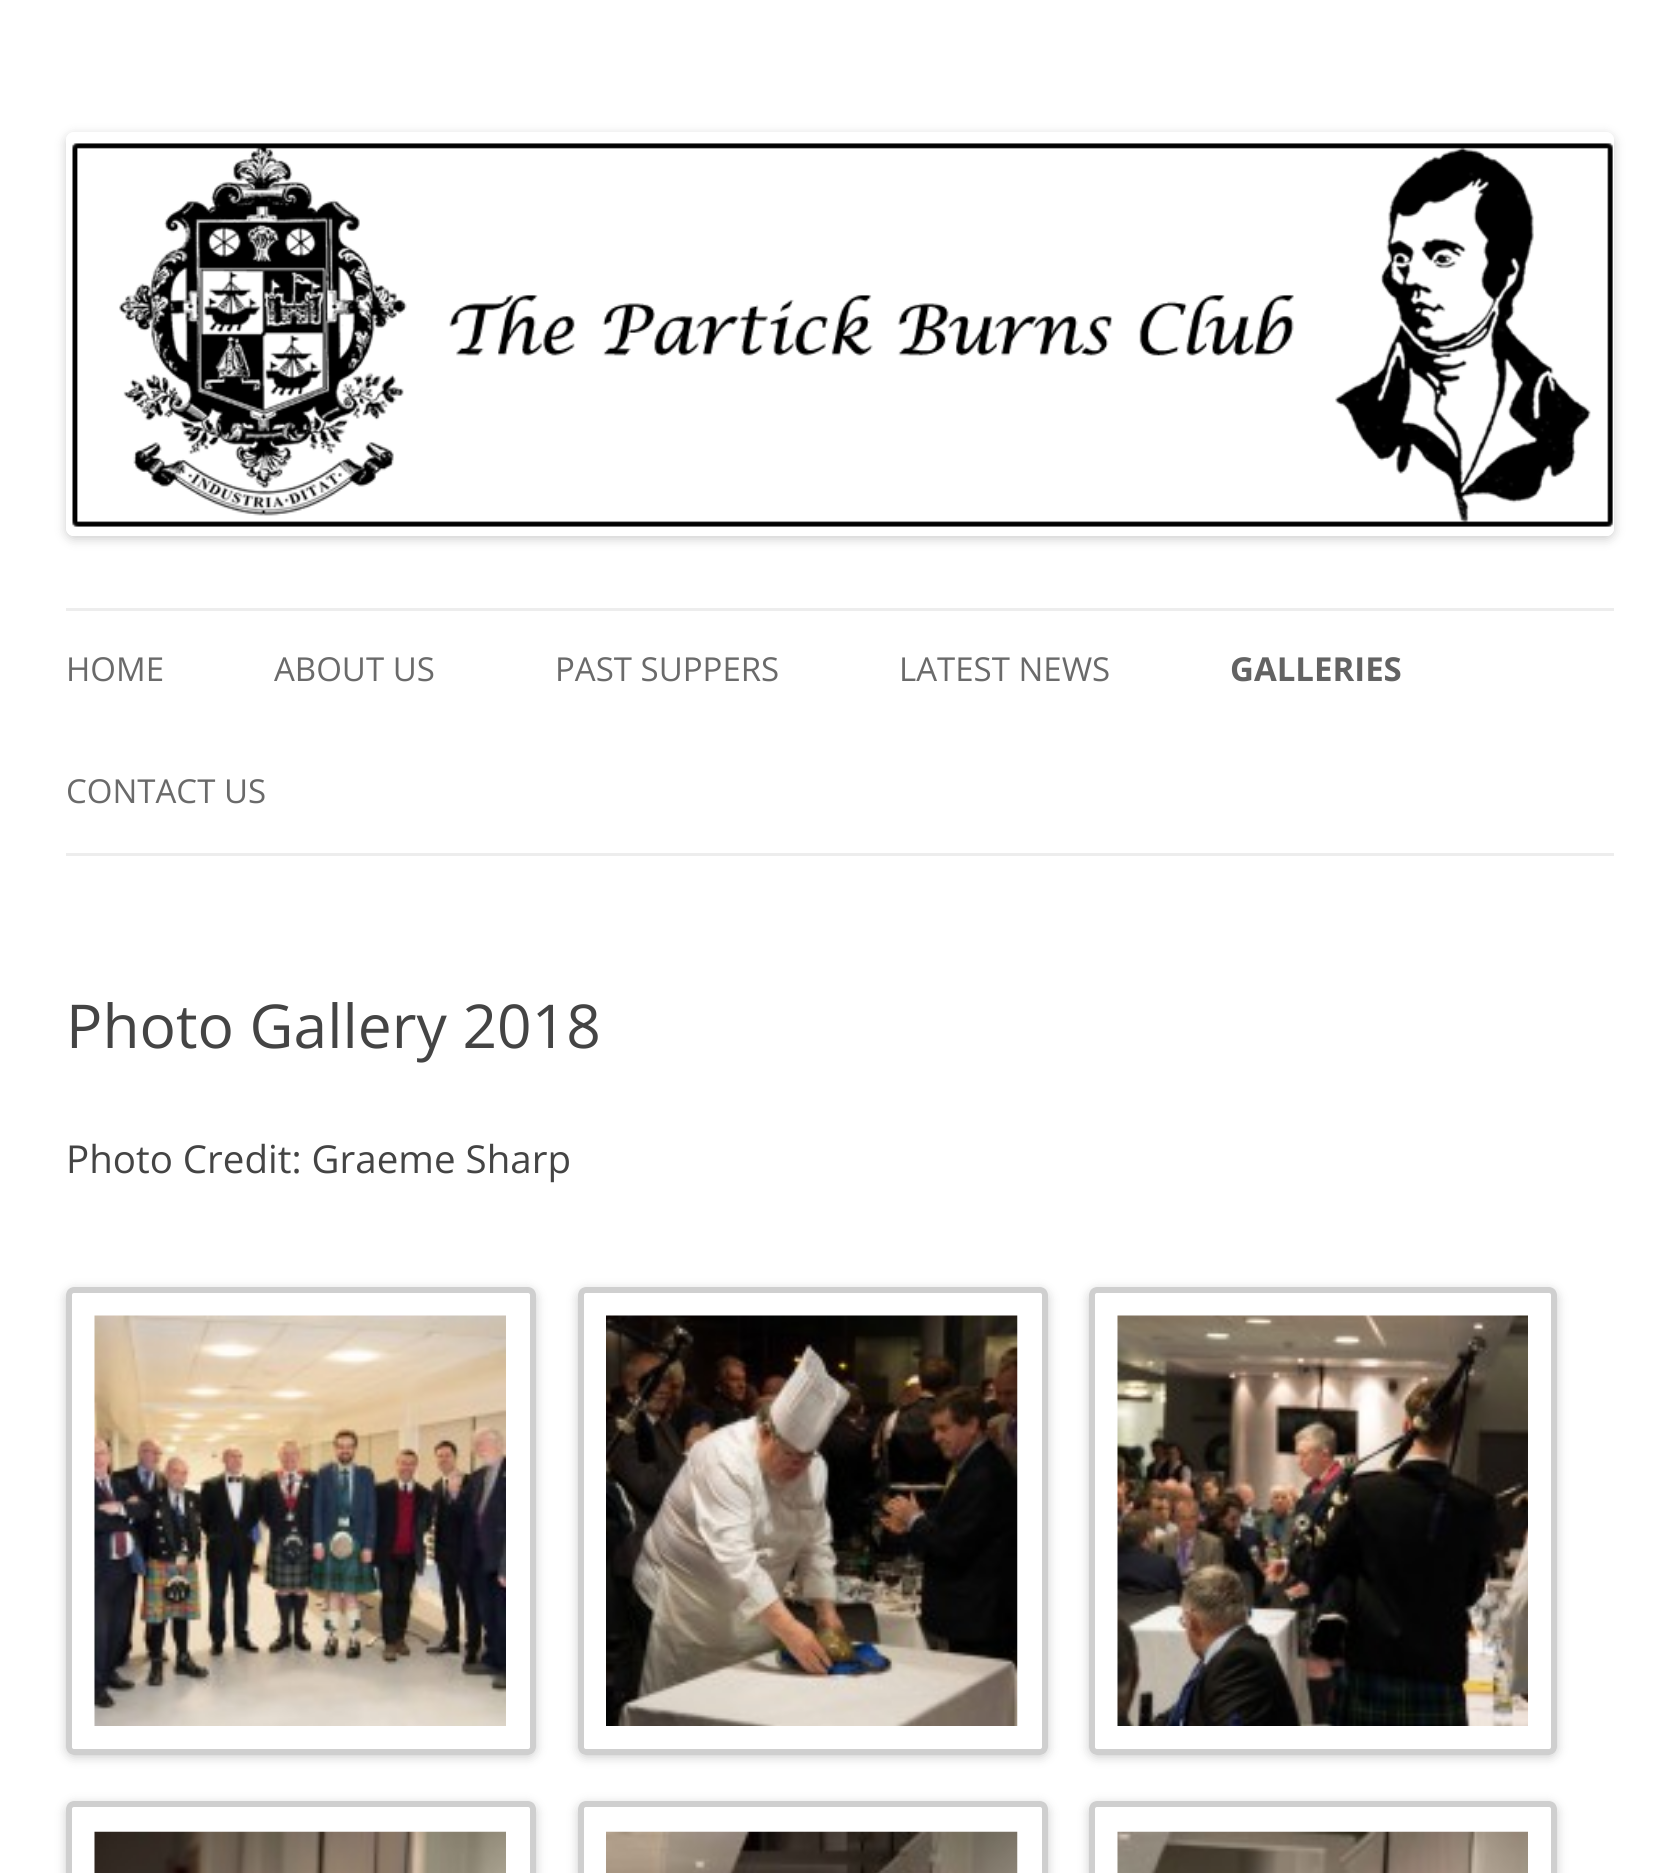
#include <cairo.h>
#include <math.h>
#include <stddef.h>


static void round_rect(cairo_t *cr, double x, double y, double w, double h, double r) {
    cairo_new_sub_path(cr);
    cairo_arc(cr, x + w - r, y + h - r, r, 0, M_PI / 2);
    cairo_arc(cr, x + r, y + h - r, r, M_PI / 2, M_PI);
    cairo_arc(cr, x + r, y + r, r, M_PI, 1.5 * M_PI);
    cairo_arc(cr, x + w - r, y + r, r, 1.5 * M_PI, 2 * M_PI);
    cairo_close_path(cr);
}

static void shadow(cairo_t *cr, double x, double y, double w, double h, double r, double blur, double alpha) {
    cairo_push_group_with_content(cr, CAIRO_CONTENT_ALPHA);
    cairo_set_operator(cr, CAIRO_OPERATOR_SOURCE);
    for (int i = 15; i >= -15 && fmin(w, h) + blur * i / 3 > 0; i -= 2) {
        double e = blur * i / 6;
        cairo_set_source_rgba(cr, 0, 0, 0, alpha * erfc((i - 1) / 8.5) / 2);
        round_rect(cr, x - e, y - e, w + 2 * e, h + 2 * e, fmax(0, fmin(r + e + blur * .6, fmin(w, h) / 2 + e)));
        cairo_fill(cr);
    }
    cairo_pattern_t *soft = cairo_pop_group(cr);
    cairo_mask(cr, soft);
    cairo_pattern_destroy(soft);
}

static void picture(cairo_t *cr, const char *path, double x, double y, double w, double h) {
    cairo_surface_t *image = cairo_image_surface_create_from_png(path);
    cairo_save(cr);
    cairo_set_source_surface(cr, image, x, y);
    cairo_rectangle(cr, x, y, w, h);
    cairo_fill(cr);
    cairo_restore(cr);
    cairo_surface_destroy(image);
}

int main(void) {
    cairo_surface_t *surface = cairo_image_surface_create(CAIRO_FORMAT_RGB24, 1680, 1873);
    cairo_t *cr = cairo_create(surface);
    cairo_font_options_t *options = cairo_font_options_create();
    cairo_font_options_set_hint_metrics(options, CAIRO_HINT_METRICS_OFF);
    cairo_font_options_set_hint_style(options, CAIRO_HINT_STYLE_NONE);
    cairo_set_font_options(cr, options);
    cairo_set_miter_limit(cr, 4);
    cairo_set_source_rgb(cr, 1, 1, 1);
    cairo_paint(cr);
    cairo_save(cr);
    cairo_set_fill_rule(cr, CAIRO_FILL_RULE_EVEN_ODD);
    cairo_new_path(cr);
    cairo_move_to(cr, 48, 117);
    cairo_line_to(cr, 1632, 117);
    cairo_line_to(cr, 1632, 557);
    cairo_line_to(cr, 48, 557);
    cairo_close_path(cr);
    cairo_move_to(cr, 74, 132);
    cairo_line_to(cr, 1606, 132);
    cairo_curve_to(cr, 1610.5, 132, 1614, 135.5, 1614, 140);
    cairo_line_to(cr, 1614, 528);
    cairo_curve_to(cr, 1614, 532.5, 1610.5, 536, 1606, 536);
    cairo_line_to(cr, 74, 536);
    cairo_curve_to(cr, 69.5, 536, 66, 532.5, 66, 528);
    cairo_line_to(cr, 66, 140);
    cairo_curve_to(cr, 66, 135.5, 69.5, 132, 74, 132);
    cairo_close_path(cr);
    cairo_clip(cr);
    cairo_set_source_rgb(cr, 0, 0, 0);
    shadow(cr, 66, 135, 1548, 404, 8, 5.5, 0.2);
    cairo_restore(cr);
    picture(cr, "img1.png", 66, 143, 1548, 393);
    cairo_set_source_rgb(cr, 0.929, 0.929, 0.929);
    cairo_rectangle(cr, 66, 608, 1548, 3);
    cairo_fill(cr);
    cairo_rectangle(cr, 66, 853, 1548, 3);
    cairo_fill(cr);
    cairo_select_font_face(cr, "Open Sans", CAIRO_FONT_SLANT_NORMAL, CAIRO_FONT_WEIGHT_NORMAL);
    cairo_set_font_size(cr, 33);
    cairo_set_source_rgb(cr, 0.416, 0.416, 0.416);
    cairo_move_to(cr, 66, 681);
    cairo_show_text(cr, "HOME");
    cairo_move_to(cr, 274, 681);
    cairo_show_text(cr, "ABOUT US");
    cairo_move_to(cr, 555, 681);
    cairo_show_text(cr, "PAST SUPPERS");
    cairo_move_to(cr, 899, 681);
    cairo_show_text(cr, "LATEST NEWS");
    cairo_select_font_face(cr, "Open Sans", CAIRO_FONT_SLANT_NORMAL, CAIRO_FONT_WEIGHT_BOLD);
    cairo_set_source_rgb(cr, 0.388, 0.388, 0.388);
    cairo_move_to(cr, 1230, 681);
    cairo_show_text(cr, "GALLERIES");
    cairo_select_font_face(cr, "Open Sans", CAIRO_FONT_SLANT_NORMAL, CAIRO_FONT_WEIGHT_NORMAL);
    cairo_set_source_rgb(cr, 0.416, 0.416, 0.416);
    cairo_move_to(cr, 66, 803);
    cairo_show_text(cr, "CONTACT US");
    cairo_set_font_size(cr, 60.5);
    cairo_set_source_rgb(cr, 0.267, 0.267, 0.267);
    cairo_move_to(cr, 66, 1048);
    cairo_show_text(cr, "Photo Gallery 2018");
    cairo_set_font_size(cr, 38.5);
    cairo_move_to(cr, 66, 1173);
    cairo_show_text(cr, "Photo Credit: Graeme Sharp");
    cairo_save(cr);
    cairo_set_fill_rule(cr, CAIRO_FILL_RULE_EVEN_ODD);
    cairo_new_path(cr);
    cairo_move_to(cr, 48, 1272);
    cairo_line_to(cr, 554, 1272);
    cairo_line_to(cr, 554, 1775);
    cairo_line_to(cr, 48, 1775);
    cairo_close_path(cr);
    cairo_move_to(cr, 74, 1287);
    cairo_line_to(cr, 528, 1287);
    cairo_curve_to(cr, 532.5, 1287, 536, 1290.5, 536, 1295);
    cairo_line_to(cr, 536, 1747);
    cairo_curve_to(cr, 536, 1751.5, 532.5, 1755, 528, 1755);
    cairo_line_to(cr, 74, 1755);
    cairo_curve_to(cr, 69.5, 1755, 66, 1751.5, 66, 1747);
    cairo_line_to(cr, 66, 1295);
    cairo_curve_to(cr, 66, 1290.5, 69.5, 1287, 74, 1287);
    cairo_close_path(cr);
    cairo_clip(cr);
    cairo_set_source_rgb(cr, 0, 0, 0);
    shadow(cr, 66, 1290, 470, 467, 8, 5.5, 0.2);
    cairo_restore(cr);
    round_rect(cr, 69, 1290, 464, 462, 5);
    cairo_set_source_rgb(cr, 0.812, 0.812, 0.812);
    cairo_set_line_width(cr, 6);
    cairo_stroke(cr);
    picture(cr, "img2.png", 94, 1315, 412, 411);
    cairo_save(cr);
    cairo_set_fill_rule(cr, CAIRO_FILL_RULE_EVEN_ODD);
    cairo_new_path(cr);
    cairo_move_to(cr, 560, 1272);
    cairo_line_to(cr, 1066, 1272);
    cairo_line_to(cr, 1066, 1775);
    cairo_line_to(cr, 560, 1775);
    cairo_close_path(cr);
    cairo_move_to(cr, 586, 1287);
    cairo_line_to(cr, 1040, 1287);
    cairo_curve_to(cr, 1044.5, 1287, 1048, 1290.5, 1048, 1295);
    cairo_line_to(cr, 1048, 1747);
    cairo_curve_to(cr, 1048, 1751.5, 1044.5, 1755, 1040, 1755);
    cairo_line_to(cr, 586, 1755);
    cairo_curve_to(cr, 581.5, 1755, 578, 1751.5, 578, 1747);
    cairo_line_to(cr, 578, 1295);
    cairo_curve_to(cr, 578, 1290.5, 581.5, 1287, 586, 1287);
    cairo_close_path(cr);
    cairo_clip(cr);
    cairo_set_source_rgb(cr, 0, 0, 0);
    shadow(cr, 578, 1290, 470, 467, 8, 5.5, 0.2);
    cairo_restore(cr);
    round_rect(cr, 581, 1290, 464, 462, 5);
    cairo_stroke(cr);
    picture(cr, "img3.png", 606, 1315, 412, 411);
    cairo_save(cr);
    cairo_set_fill_rule(cr, CAIRO_FILL_RULE_EVEN_ODD);
    cairo_new_path(cr);
    cairo_move_to(cr, 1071, 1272);
    cairo_line_to(cr, 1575, 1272);
    cairo_line_to(cr, 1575, 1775);
    cairo_line_to(cr, 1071, 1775);
    cairo_close_path(cr);
    cairo_move_to(cr, 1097, 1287);
    cairo_line_to(cr, 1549, 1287);
    cairo_curve_to(cr, 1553.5, 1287, 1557, 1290.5, 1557, 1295);
    cairo_line_to(cr, 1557, 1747);
    cairo_curve_to(cr, 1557, 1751.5, 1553.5, 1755, 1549, 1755);
    cairo_line_to(cr, 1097, 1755);
    cairo_curve_to(cr, 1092.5, 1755, 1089, 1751.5, 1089, 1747);
    cairo_line_to(cr, 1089, 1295);
    cairo_curve_to(cr, 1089, 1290.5, 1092.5, 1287, 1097, 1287);
    cairo_close_path(cr);
    cairo_clip(cr);
    cairo_set_source_rgb(cr, 0, 0, 0);
    shadow(cr, 1089, 1290, 468, 467, 8, 5.5, 0.2);
    cairo_restore(cr);
    round_rect(cr, 1092, 1290, 462, 462, 5);
    cairo_stroke(cr);
    picture(cr, "img4.png", 1117, 1315, 411, 411);
    cairo_save(cr);
    cairo_set_fill_rule(cr, CAIRO_FILL_RULE_EVEN_ODD);
    cairo_new_path(cr);
    cairo_move_to(cr, 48, 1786);
    cairo_line_to(cr, 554, 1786);
    cairo_line_to(cr, 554, 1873);
    cairo_line_to(cr, 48, 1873);
    cairo_close_path(cr);
    cairo_move_to(cr, 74, 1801);
    cairo_line_to(cr, 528, 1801);
    cairo_curve_to(cr, 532.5, 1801, 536, 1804.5, 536, 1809);
    cairo_line_to(cr, 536, 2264);
    cairo_curve_to(cr, 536, 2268.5, 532.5, 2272, 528, 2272);
    cairo_line_to(cr, 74, 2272);
    cairo_curve_to(cr, 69.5, 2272, 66, 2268.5, 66, 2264);
    cairo_line_to(cr, 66, 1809);
    cairo_curve_to(cr, 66, 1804.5, 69.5, 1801, 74, 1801);
    cairo_close_path(cr);
    cairo_clip(cr);
    cairo_set_source_rgb(cr, 0, 0, 0);
    shadow(cr, 66, 1804, 470, 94, 8, 5.5, 0.2);
    cairo_restore(cr);
    round_rect(cr, 69, 1804, 464, 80, 5);
    cairo_stroke(cr);
    picture(cr, "img5.png", 94, 1831, 412, 42);
    cairo_save(cr);
    cairo_set_fill_rule(cr, CAIRO_FILL_RULE_EVEN_ODD);
    cairo_new_path(cr);
    cairo_move_to(cr, 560, 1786);
    cairo_line_to(cr, 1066, 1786);
    cairo_line_to(cr, 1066, 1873);
    cairo_line_to(cr, 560, 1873);
    cairo_close_path(cr);
    cairo_move_to(cr, 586, 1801);
    cairo_line_to(cr, 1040, 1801);
    cairo_curve_to(cr, 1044.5, 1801, 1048, 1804.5, 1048, 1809);
    cairo_line_to(cr, 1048, 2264);
    cairo_curve_to(cr, 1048, 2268.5, 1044.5, 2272, 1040, 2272);
    cairo_line_to(cr, 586, 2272);
    cairo_curve_to(cr, 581.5, 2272, 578, 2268.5, 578, 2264);
    cairo_line_to(cr, 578, 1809);
    cairo_curve_to(cr, 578, 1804.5, 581.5, 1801, 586, 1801);
    cairo_close_path(cr);
    cairo_clip(cr);
    cairo_set_source_rgb(cr, 0, 0, 0);
    shadow(cr, 578, 1804, 470, 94, 8, 5.5, 0.2);
    cairo_restore(cr);
    round_rect(cr, 581, 1804, 464, 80, 5);
    cairo_stroke(cr);
    picture(cr, "img6.png", 606, 1831, 412, 42);
    cairo_save(cr);
    cairo_set_fill_rule(cr, CAIRO_FILL_RULE_EVEN_ODD);
    cairo_new_path(cr);
    cairo_move_to(cr, 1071, 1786);
    cairo_line_to(cr, 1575, 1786);
    cairo_line_to(cr, 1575, 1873);
    cairo_line_to(cr, 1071, 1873);
    cairo_close_path(cr);
    cairo_move_to(cr, 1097, 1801);
    cairo_line_to(cr, 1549, 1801);
    cairo_curve_to(cr, 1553.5, 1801, 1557, 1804.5, 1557, 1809);
    cairo_line_to(cr, 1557, 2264);
    cairo_curve_to(cr, 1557, 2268.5, 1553.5, 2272, 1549, 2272);
    cairo_line_to(cr, 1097, 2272);
    cairo_curve_to(cr, 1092.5, 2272, 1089, 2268.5, 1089, 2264);
    cairo_line_to(cr, 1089, 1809);
    cairo_curve_to(cr, 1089, 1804.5, 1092.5, 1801, 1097, 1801);
    cairo_close_path(cr);
    cairo_clip(cr);
    cairo_set_source_rgb(cr, 0, 0, 0);
    shadow(cr, 1089, 1804, 468, 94, 8, 5.5, 0.2);
    cairo_restore(cr);
    round_rect(cr, 1092, 1804, 462, 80, 5);
    cairo_stroke(cr);
    picture(cr, "img7.png", 1117, 1831, 411, 42);
    cairo_surface_write_to_png(surface, "page.png");
    cairo_font_options_destroy(options);
    cairo_destroy(cr);
    cairo_surface_destroy(surface);
    return 0;
}
